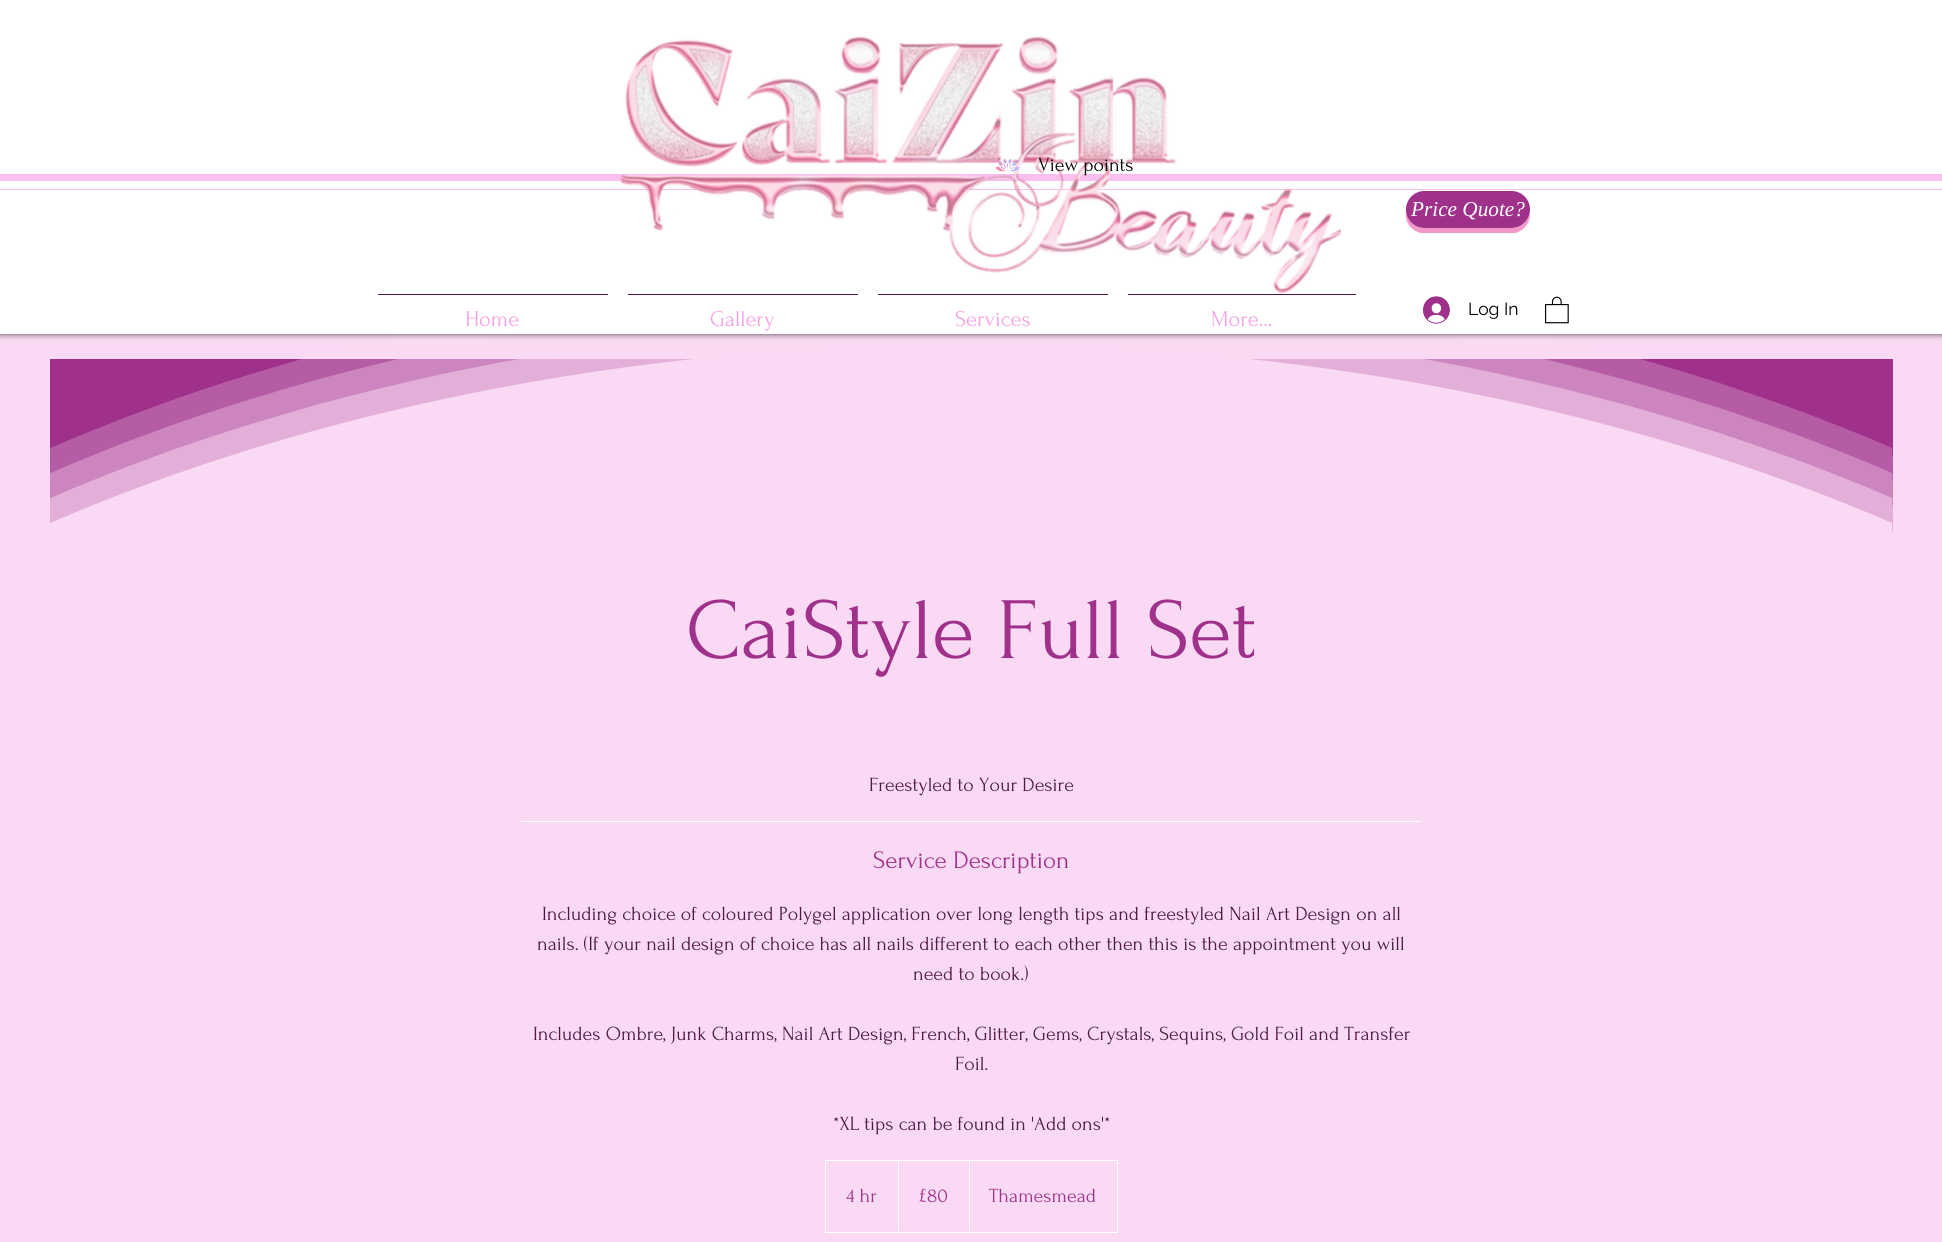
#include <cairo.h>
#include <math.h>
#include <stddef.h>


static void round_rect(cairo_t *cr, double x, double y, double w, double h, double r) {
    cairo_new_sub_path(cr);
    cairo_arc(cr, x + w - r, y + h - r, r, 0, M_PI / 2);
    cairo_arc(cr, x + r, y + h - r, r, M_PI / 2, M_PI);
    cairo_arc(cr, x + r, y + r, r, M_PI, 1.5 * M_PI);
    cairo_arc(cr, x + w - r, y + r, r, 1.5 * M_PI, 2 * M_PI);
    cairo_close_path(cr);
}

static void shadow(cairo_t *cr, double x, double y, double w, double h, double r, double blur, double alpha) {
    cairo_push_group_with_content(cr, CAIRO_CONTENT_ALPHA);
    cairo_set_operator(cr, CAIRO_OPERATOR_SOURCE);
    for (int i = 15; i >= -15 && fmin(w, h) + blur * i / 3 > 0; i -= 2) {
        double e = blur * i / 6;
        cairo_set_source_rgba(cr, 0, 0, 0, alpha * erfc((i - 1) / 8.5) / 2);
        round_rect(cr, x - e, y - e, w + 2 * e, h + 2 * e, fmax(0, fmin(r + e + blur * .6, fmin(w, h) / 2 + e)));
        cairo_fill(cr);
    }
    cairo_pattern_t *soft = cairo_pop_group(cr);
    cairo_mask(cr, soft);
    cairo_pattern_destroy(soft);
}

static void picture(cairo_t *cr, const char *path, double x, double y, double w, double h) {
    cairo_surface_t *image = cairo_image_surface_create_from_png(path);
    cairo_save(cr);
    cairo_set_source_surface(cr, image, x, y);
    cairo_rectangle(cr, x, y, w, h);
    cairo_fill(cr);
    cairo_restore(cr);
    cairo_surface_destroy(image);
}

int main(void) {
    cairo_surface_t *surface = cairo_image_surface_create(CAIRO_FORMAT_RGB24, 1942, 1242);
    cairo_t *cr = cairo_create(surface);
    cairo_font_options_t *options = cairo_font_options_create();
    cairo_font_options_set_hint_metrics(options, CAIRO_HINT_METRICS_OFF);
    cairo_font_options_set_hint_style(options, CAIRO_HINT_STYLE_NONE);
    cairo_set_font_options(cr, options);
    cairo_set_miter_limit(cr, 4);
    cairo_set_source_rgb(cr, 0.976, 0.851, 0.953);
    cairo_paint(cr);
    cairo_set_source_rgb(cr, 0.624, 0.192, 0.545);
    cairo_rectangle(cr, 50, 359, 1843, 97);
    cairo_fill(cr);
    picture(cr, "img5.png", 50, 334, 1843, 122);
    cairo_set_source_rgb(cr, 0.714, 0.357, 0.647);
    cairo_rectangle(cr, 50, 456, 1843, 25);
    cairo_fill(cr);
    picture(cr, "img6.png", 50, 334, 1843, 147);
    cairo_set_source_rgb(cr, 0.8, 0.522, 0.749);
    cairo_rectangle(cr, 50, 481, 1843, 25);
    cairo_fill(cr);
    picture(cr, "img7.png", 50, 334, 1843, 172);
    cairo_set_source_rgb(cr, 0, 0, 0);
    shadow(cr, 0, 0, 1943, 334, 0, 3, 0.7);
    cairo_set_source_rgb(cr, 1, 1, 1);
    cairo_rectangle(cr, 0, 0, 1942, 334);
    cairo_fill(cr);
    cairo_set_source_rgb(cr, 0.976, 0.753, 0.937);
    cairo_rectangle(cr, 0, 174, 1942, 7);
    cairo_fill(cr);
    cairo_rectangle(cr, 0, 189, 1942, 1);
    cairo_fill(cr);
    picture(cr, "img1.png", 620, 35, 722, 259);
    picture(cr, "img2.png", 995, 158, 25, 14);
    cairo_select_font_face(cr, "Forum", CAIRO_FONT_SLANT_NORMAL, CAIRO_FONT_WEIGHT_NORMAL);
    cairo_set_font_size(cr, 20);
    cairo_set_source_rgb(cr, 0, 0, 0);
    cairo_move_to(cr, 1038, 171);
    cairo_show_text(cr, "View points");
    cairo_set_source_rgb(cr, 0.949, 0.6, 0.788);
    cairo_new_path(cr);
    cairo_move_to(cr, 1406, 211);
    cairo_curve_to(cr, 1404, 221, 1411, 231, 1421, 233);
    cairo_line_to(cr, 1439, 233);
    cairo_line_to(cr, 1515, 233);
    cairo_curve_to(cr, 1525, 231, 1531, 221, 1530, 212);
    cairo_curve_to(cr, 1529, 221, 1521, 228, 1512, 228);
    cairo_line_to(cr, 1424, 228);
    cairo_curve_to(cr, 1415, 228, 1407, 220, 1406, 211);
    cairo_close_path(cr);
    cairo_fill(cr);
    cairo_set_source_rgb(cr, 0.624, 0.192, 0.545);
    round_rect(cr, 1406, 191, 124, 37, 18.5);
    cairo_fill(cr);
    cairo_select_font_face(cr, "Liberation Serif", CAIRO_FONT_SLANT_ITALIC, CAIRO_FONT_WEIGHT_NORMAL);
    cairo_set_font_size(cr, 21.25);
    cairo_set_source_rgb(cr, 1, 1, 1);
    cairo_move_to(cr, 1411, 216);
    cairo_show_text(cr, "Price Quote?");
    cairo_set_source_rgb(cr, 0.31, 0.098, 0.275);
    cairo_rectangle(cr, 378, 294, 230, 1);
    cairo_fill(cr);
    cairo_select_font_face(cr, "Forum", CAIRO_FONT_SLANT_NORMAL, CAIRO_FONT_WEIGHT_NORMAL);
    cairo_set_font_size(cr, 22.5);
    cairo_set_source_rgb(cr, 0.957, 0.627, 0.898);
    cairo_move_to(cr, 465, 326);
    cairo_show_text(cr, "Home");
    cairo_set_source_rgb(cr, 0.31, 0.098, 0.275);
    cairo_rectangle(cr, 628, 294, 230, 1);
    cairo_fill(cr);
    cairo_set_source_rgb(cr, 0.957, 0.627, 0.898);
    cairo_move_to(cr, 710, 326);
    cairo_show_text(cr, "Gallery");
    cairo_set_source_rgb(cr, 0.31, 0.098, 0.275);
    cairo_rectangle(cr, 878, 294, 230, 1);
    cairo_fill(cr);
    cairo_set_source_rgb(cr, 0.957, 0.627, 0.898);
    cairo_move_to(cr, 955, 326);
    cairo_show_text(cr, "Services");
    cairo_set_source_rgb(cr, 0.31, 0.098, 0.275);
    cairo_rectangle(cr, 1128, 294, 228, 1);
    cairo_fill(cr);
    cairo_set_source_rgb(cr, 0.957, 0.627, 0.898);
    cairo_move_to(cr, 1211, 326);
    cairo_show_text(cr, "More...");
    picture(cr, "img3.png", 1423, 296, 27, 28);
    cairo_select_font_face(cr, "Raleway", CAIRO_FONT_SLANT_NORMAL, CAIRO_FONT_WEIGHT_NORMAL);
    cairo_set_font_size(cr, 17.5);
    cairo_set_source_rgb(cr, 0, 0, 0);
    cairo_move_to(cr, 1468, 315);
    cairo_show_text(cr, "Log In");
    picture(cr, "img4.png", 1545, 296, 24, 28);
    cairo_set_source_rgb(cr, 0.89, 0.686, 0.851);
    cairo_rectangle(cr, 50, 506, 1843, 25);
    cairo_fill(cr);
    cairo_set_source_rgb(cr, 0.976, 0.851, 0.953);
    cairo_new_path(cr);
    cairo_move_to(cr, 1892, 523);
    cairo_curve_to(cr, 1640, 414, 1320, 344, 971, 344);
    cairo_curve_to(cr, 623, 344, 302, 414, 50, 523);
    cairo_line_to(cr, 50, 531);
    cairo_line_to(cr, 1892, 531);
    cairo_close_path(cr);
    cairo_fill(cr);
    cairo_select_font_face(cr, "Forum", CAIRO_FONT_SLANT_NORMAL, CAIRO_FONT_WEIGHT_NORMAL);
    cairo_set_font_size(cr, 87.5);
    cairo_set_source_rgb(cr, 0.624, 0.192, 0.545);
    cairo_move_to(cr, 686, 658);
    cairo_show_text(cr, "CaiStyle Full Set");
    cairo_set_font_size(cr, 20);
    cairo_set_source_rgb(cr, 0.31, 0.098, 0.275);
    cairo_move_to(cr, 869, 791);
    cairo_show_text(cr, "Freestyled to Your Desire");
    cairo_set_source_rgb(cr, 1, 1, 1);
    cairo_rectangle(cr, 521, 821, 900, 1);
    cairo_fill(cr);
    cairo_set_font_size(cr, 25);
    cairo_set_source_rgb(cr, 0.624, 0.192, 0.545);
    cairo_move_to(cr, 873, 868);
    cairo_show_text(cr, "Service Description");
    cairo_set_font_size(cr, 20);
    cairo_set_source_rgb(cr, 0.31, 0.098, 0.275);
    cairo_move_to(cr, 542, 920);
    cairo_show_text(cr, "Including choice of coloured Polygel application over long length tips and freestyled Nail Art Design on all");
    cairo_move_to(cr, 537, 950);
    cairo_show_text(cr, "nails. (If your nail design of choice has all nails different to each other then this is the appointment you will");
    cairo_move_to(cr, 913, 980);
    cairo_show_text(cr, "need to book.)");
    cairo_move_to(cr, 533, 1040);
    cairo_show_text(cr, "Includes Ombre, Junk Charms, Nail Art Design, French, Glitter, Gems, Crystals, Sequins, Gold Foil and Transfer");
    cairo_move_to(cr, 955, 1070);
    cairo_show_text(cr, "Foil.");
    cairo_move_to(cr, 833, 1130);
    cairo_show_text(cr, "*XL tips can be found in 'Add ons'*");
    cairo_rectangle(cr, 825.5, 1160.5, 292, 72);
    cairo_set_source_rgb(cr, 1, 1, 1);
    cairo_set_line_width(cr, 1);
    cairo_stroke(cr);
    cairo_set_source_rgb(cr, 0.624, 0.192, 0.545);
    cairo_move_to(cr, 846, 1202);
    cairo_show_text(cr, "4 hr");
    cairo_set_source_rgb(cr, 1, 1, 1);
    cairo_rectangle(cr, 898, 1161, 1, 70);
    cairo_fill(cr);
    cairo_set_source_rgb(cr, 0.624, 0.192, 0.545);
    cairo_move_to(cr, 918, 1202);
    cairo_show_text(cr, "£80");
    cairo_set_source_rgb(cr, 1, 1, 1);
    cairo_rectangle(cr, 969, 1161, 1, 70);
    cairo_fill(cr);
    cairo_set_source_rgb(cr, 0.624, 0.192, 0.545);
    cairo_move_to(cr, 989, 1202);
    cairo_show_text(cr, "Thamesmead");
    cairo_surface_write_to_png(surface, "page.png");
    cairo_font_options_destroy(options);
    cairo_destroy(cr);
    cairo_surface_destroy(surface);
    return 0;
}
